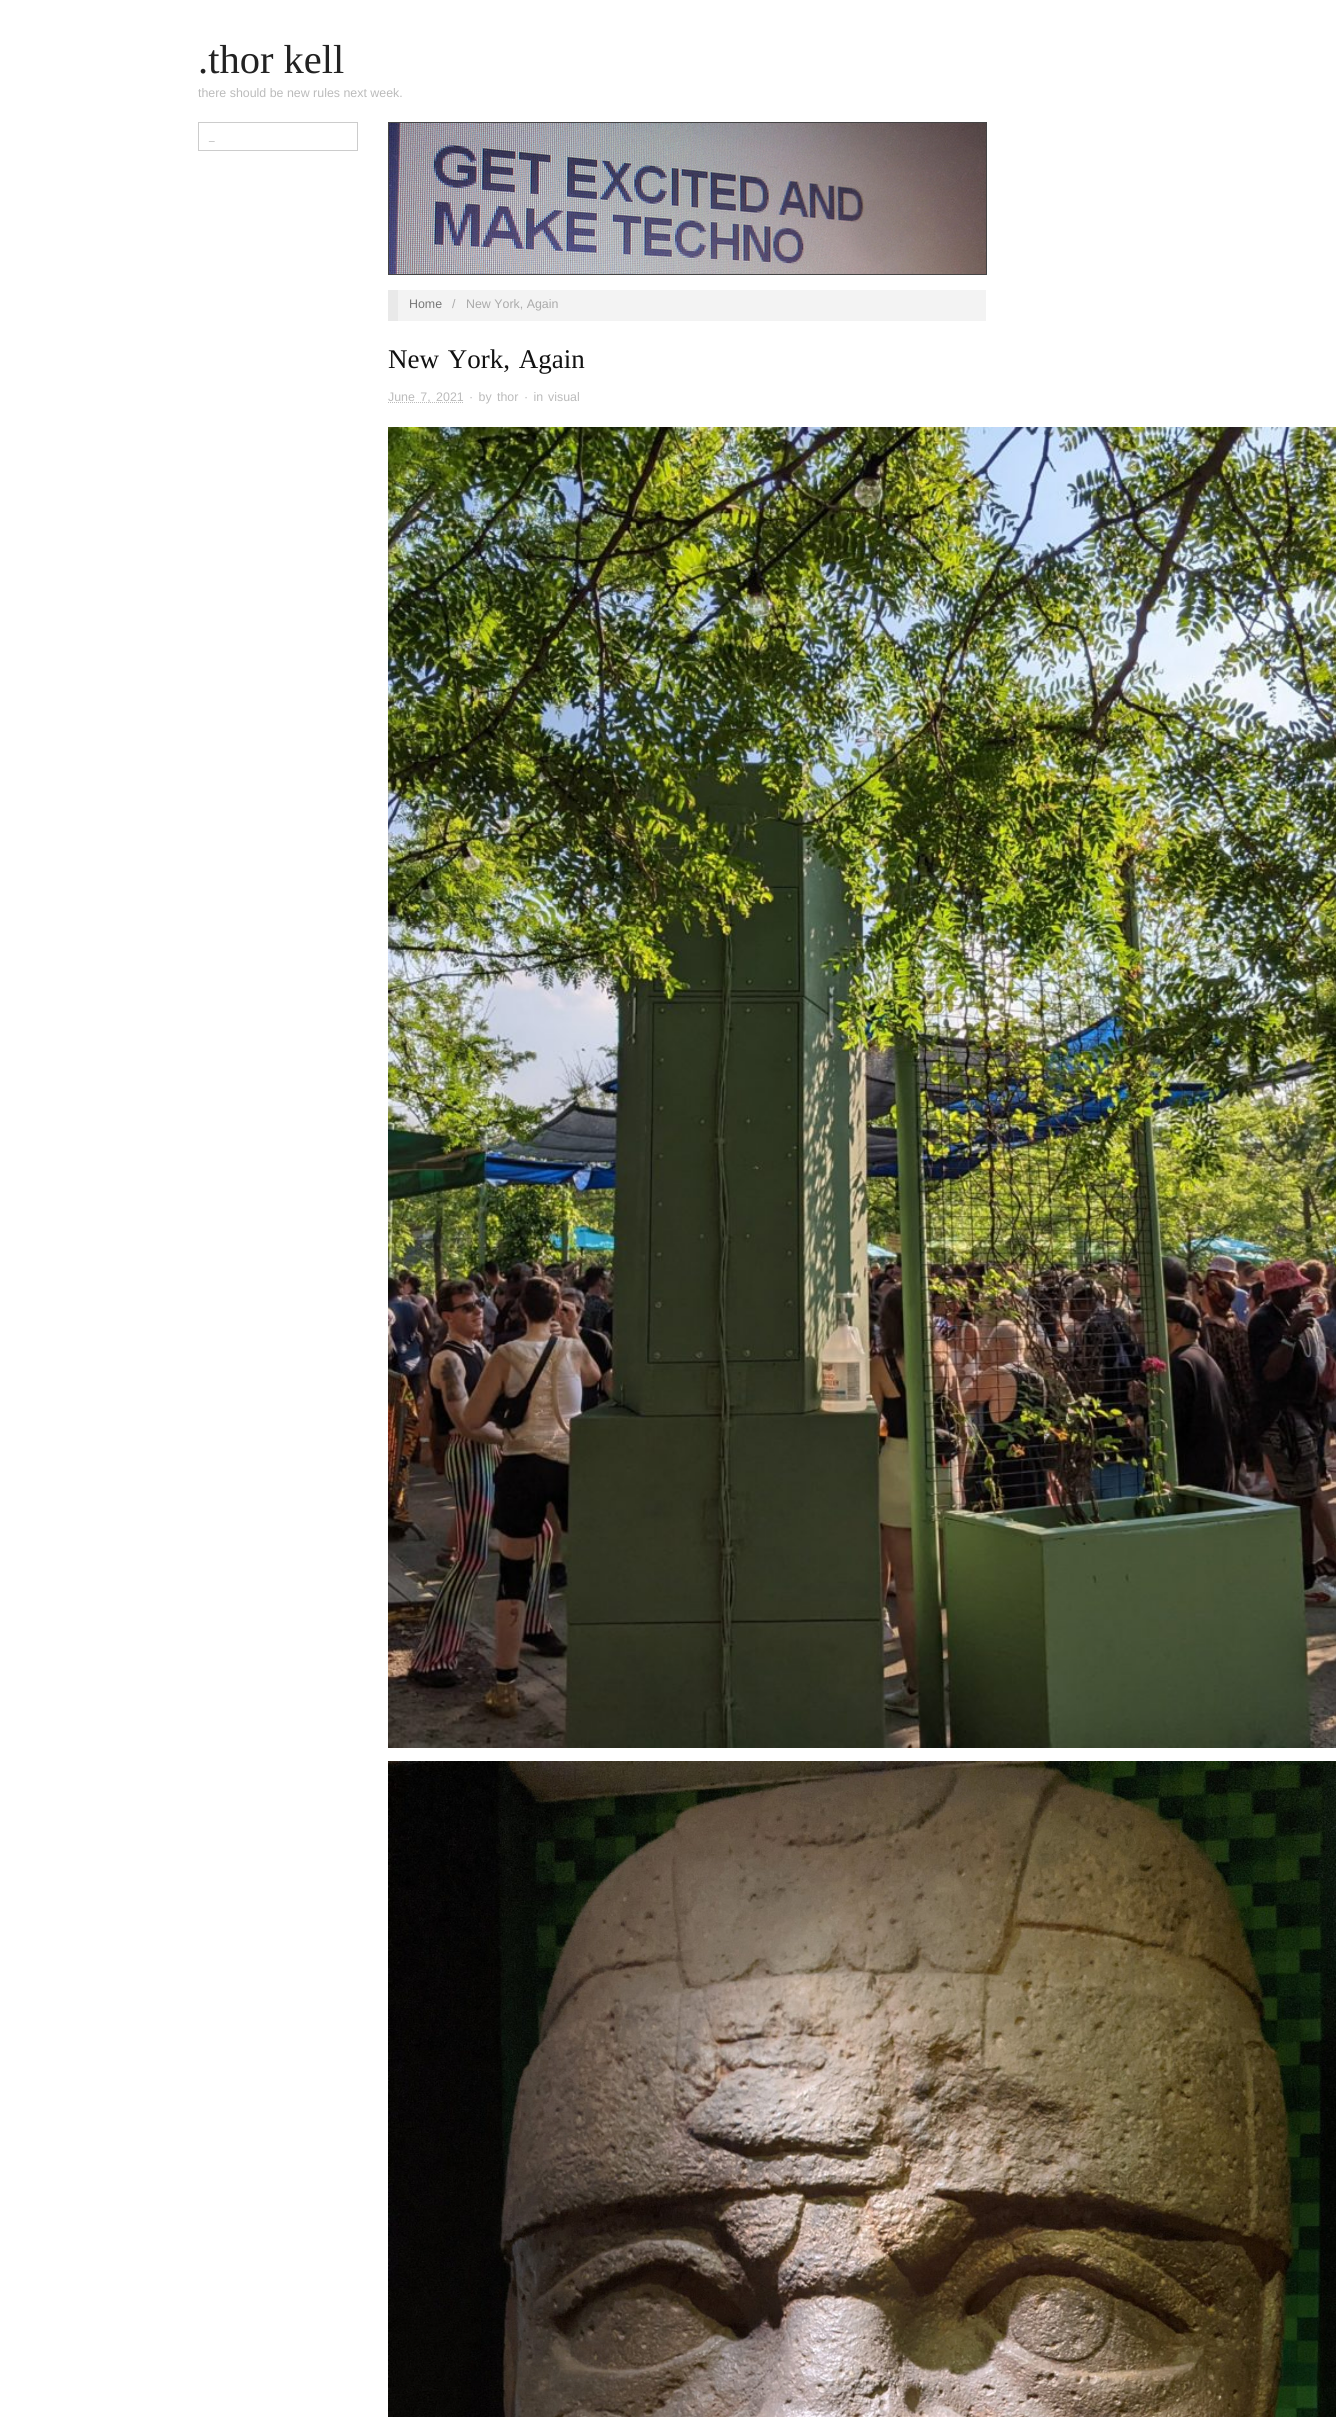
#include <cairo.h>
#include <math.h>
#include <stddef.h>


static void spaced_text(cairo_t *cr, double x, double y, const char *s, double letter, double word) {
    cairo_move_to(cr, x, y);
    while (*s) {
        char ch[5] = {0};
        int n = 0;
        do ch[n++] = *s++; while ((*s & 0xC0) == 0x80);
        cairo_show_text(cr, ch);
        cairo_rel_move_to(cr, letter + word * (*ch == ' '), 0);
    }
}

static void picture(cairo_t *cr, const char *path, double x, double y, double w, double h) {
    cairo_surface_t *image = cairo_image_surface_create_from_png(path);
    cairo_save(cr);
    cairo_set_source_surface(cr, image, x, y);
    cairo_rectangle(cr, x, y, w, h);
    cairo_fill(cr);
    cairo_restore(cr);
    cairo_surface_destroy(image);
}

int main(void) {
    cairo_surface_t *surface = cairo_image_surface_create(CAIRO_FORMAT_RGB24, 1336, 2417);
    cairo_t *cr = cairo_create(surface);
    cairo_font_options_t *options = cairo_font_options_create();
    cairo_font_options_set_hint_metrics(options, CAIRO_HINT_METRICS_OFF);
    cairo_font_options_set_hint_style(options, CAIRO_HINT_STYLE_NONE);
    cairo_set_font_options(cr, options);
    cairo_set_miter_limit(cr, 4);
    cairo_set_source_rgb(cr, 1, 1, 1);
    cairo_paint(cr);
    cairo_select_font_face(cr, "Liberation Serif", CAIRO_FONT_SLANT_NORMAL, CAIRO_FONT_WEIGHT_NORMAL);
    cairo_set_font_size(cr, 40.5);
    cairo_set_source_rgb(cr, 0.133, 0.133, 0.133);
    cairo_move_to(cr, 198, 73);
    cairo_show_text(cr, ".thor kell");
    cairo_select_font_face(cr, "Liberation Sans", CAIRO_FONT_SLANT_NORMAL, CAIRO_FONT_WEIGHT_NORMAL);
    cairo_set_font_size(cr, 12.4);
    cairo_set_source_rgb(cr, 0.733, 0.733, 0.733);
    cairo_move_to(cr, 198, 97);
    cairo_show_text(cr, "there should be new rules next week.");
    cairo_rectangle(cr, 198.5, 122.5, 159, 28);
    cairo_set_source_rgb(cr, 0.8, 0.8, 0.8);
    cairo_set_line_width(cr, 1);
    cairo_stroke(cr);
    cairo_set_font_size(cr, 10);
    cairo_set_source_rgb(cr, 0.667, 0.667, 0.667);
    cairo_move_to(cr, 209, 140);
    cairo_show_text(cr, "_");
    cairo_rectangle(cr, 388.5, 122.5, 598, 152);
    cairo_set_source_rgb(cr, 0.267, 0.267, 0.267);
    cairo_stroke(cr);
    picture(cr, "img1.png", 389, 123, 597, 151);
    cairo_set_source_rgb(cr, 0.953, 0.953, 0.953);
    cairo_rectangle(cr, 398, 290, 588, 31);
    cairo_fill(cr);
    cairo_set_source_rgb(cr, 0.914, 0.914, 0.914);
    cairo_rectangle(cr, 388, 290, 10, 31);
    cairo_fill(cr);
    cairo_set_font_size(cr, 12.4);
    cairo_set_source_rgb(cr, 0.467, 0.467, 0.467);
    cairo_move_to(cr, 409, 308);
    cairo_show_text(cr, "Home");
    cairo_set_source_rgb(cr, 0.667, 0.667, 0.667);
    cairo_move_to(cr, 452, 308);
    cairo_show_text(cr, "/");
    cairo_move_to(cr, 466, 308);
    cairo_show_text(cr, "New York, Again");
    cairo_select_font_face(cr, "Liberation Serif", CAIRO_FONT_SLANT_NORMAL, CAIRO_FONT_WEIGHT_NORMAL);
    cairo_set_font_size(cr, 27);
    cairo_set_source_rgb(cr, 0.067, 0.067, 0.067);
    spaced_text(cr, 388, 368, "New York, Again", 0, 2);
    cairo_new_path(cr);
    cairo_move_to(cr, 388, 402.5);
    cairo_line_to(cr, 463.5, 402.5);
    cairo_set_source_rgb(cr, 0.733, 0.733, 0.733);
    cairo_set_dash(cr, (double[]){1, 1}, 2, 0);
    cairo_stroke(cr);
    cairo_select_font_face(cr, "Liberation Sans", CAIRO_FONT_SLANT_NORMAL, CAIRO_FONT_WEIGHT_NORMAL);
    cairo_set_font_size(cr, 12.4);
    spaced_text(cr, 388, 401, "June 7, 2021", 0, 2);
    spaced_text(cr, 469, 401, "· by", 0, 2);
    cairo_move_to(cr, 497, 401);
    cairo_show_text(cr, "thor");
    spaced_text(cr, 524, 401, "· in", 0, 2);
    cairo_move_to(cr, 548, 401);
    cairo_show_text(cr, "visual");
    picture(cr, "img2.png", 388, 427, 948, 1321);
    picture(cr, "img3.png", 388, 1761, 948, 656);
    cairo_surface_write_to_png(surface, "page.png");
    cairo_font_options_destroy(options);
    cairo_destroy(cr);
    cairo_surface_destroy(surface);
    return 0;
}
